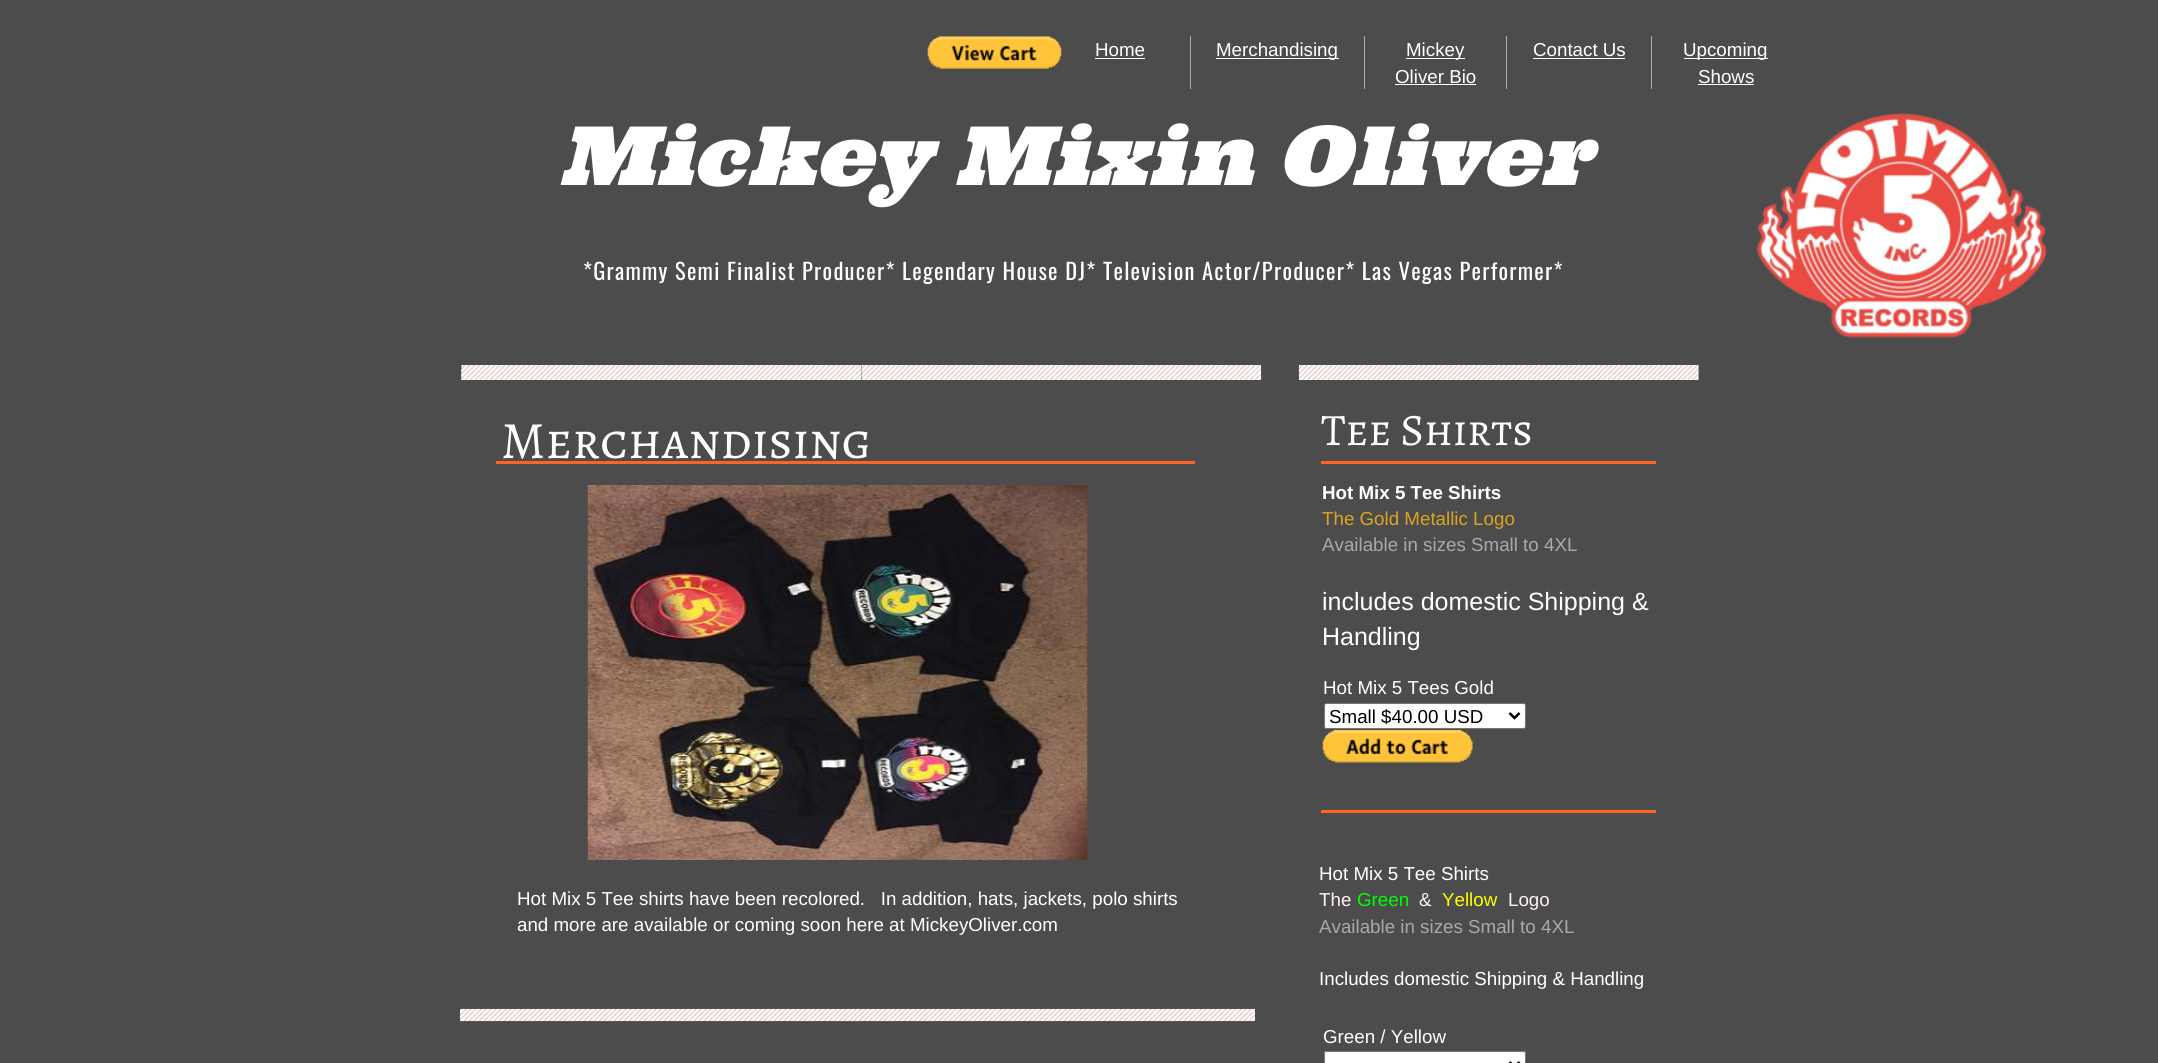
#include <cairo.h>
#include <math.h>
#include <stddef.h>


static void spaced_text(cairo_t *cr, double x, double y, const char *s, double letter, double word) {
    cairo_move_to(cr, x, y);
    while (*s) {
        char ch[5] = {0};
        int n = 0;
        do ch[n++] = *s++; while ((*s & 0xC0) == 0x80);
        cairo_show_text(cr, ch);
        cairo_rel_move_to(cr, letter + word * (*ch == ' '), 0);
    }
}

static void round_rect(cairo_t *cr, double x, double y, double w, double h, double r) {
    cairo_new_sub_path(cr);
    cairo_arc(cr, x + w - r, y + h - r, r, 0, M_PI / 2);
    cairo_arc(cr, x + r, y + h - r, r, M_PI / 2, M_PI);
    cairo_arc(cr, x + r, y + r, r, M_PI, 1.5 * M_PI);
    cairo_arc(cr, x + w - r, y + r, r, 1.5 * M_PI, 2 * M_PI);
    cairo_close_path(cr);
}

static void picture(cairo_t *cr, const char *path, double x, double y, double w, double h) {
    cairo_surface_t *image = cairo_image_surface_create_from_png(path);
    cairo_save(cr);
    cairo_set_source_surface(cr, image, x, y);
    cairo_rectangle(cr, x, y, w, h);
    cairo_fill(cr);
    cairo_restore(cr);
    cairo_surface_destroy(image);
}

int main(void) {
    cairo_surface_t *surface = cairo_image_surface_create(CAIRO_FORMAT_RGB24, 2158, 1063);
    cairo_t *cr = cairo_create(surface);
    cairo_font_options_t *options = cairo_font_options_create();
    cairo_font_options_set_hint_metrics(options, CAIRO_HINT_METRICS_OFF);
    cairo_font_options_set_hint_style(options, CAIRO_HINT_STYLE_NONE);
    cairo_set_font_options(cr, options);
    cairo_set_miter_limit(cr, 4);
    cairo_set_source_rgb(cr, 0.298, 0.298, 0.298);
    cairo_paint(cr);
    picture(cr, "img1.png", 927, 36, 135, 33);
    cairo_set_source_rgb(cr, 0.682, 0.682, 0.682);
    cairo_rectangle(cr, 1190, 36, 1, 53);
    cairo_fill(cr);
    cairo_select_font_face(cr, "Liberation Sans", CAIRO_FONT_SLANT_NORMAL, CAIRO_FONT_WEIGHT_NORMAL);
    cairo_set_font_size(cr, 18.75);
    cairo_set_source_rgb(cr, 1, 1, 1);
    cairo_move_to(cr, 1095, 56);
    cairo_show_text(cr, "Home");
    cairo_rectangle(cr, 1095, 58, 50, 1);
    cairo_fill(cr);
    cairo_set_source_rgb(cr, 0.682, 0.682, 0.682);
    cairo_rectangle(cr, 1364, 36, 1, 53);
    cairo_fill(cr);
    cairo_set_source_rgb(cr, 1, 1, 1);
    cairo_rectangle(cr, 1216, 58, 123, 1);
    cairo_fill(cr);
    cairo_move_to(cr, 1216, 56);
    cairo_show_text(cr, "Merchandising");
    cairo_set_source_rgb(cr, 0.682, 0.682, 0.682);
    cairo_rectangle(cr, 1506, 36, 1, 53);
    cairo_fill(cr);
    cairo_set_source_rgb(cr, 1, 1, 1);
    cairo_rectangle(cr, 1406, 58, 59, 1);
    cairo_fill(cr);
    cairo_move_to(cr, 1406, 56);
    cairo_show_text(cr, "Mickey");
    cairo_move_to(cr, 1395, 83);
    cairo_show_text(cr, "Oliver Bio");
    cairo_rectangle(cr, 1395, 84, 81, 1);
    cairo_fill(cr);
    cairo_set_source_rgb(cr, 0.682, 0.682, 0.682);
    cairo_rectangle(cr, 1651, 36, 1, 53);
    cairo_fill(cr);
    cairo_set_source_rgb(cr, 1, 1, 1);
    cairo_move_to(cr, 1533, 56);
    cairo_show_text(cr, "Contact Us");
    cairo_rectangle(cr, 1533, 58, 92, 1);
    cairo_fill(cr);
    cairo_rectangle(cr, 1684, 58, 84, 1);
    cairo_fill(cr);
    cairo_move_to(cr, 1683, 56);
    cairo_show_text(cr, "Upcoming");
    cairo_move_to(cr, 1698, 83);
    cairo_show_text(cr, "Shows");
    cairo_rectangle(cr, 1698, 84, 56, 1);
    cairo_fill(cr);
    cairo_select_font_face(cr, "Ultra", CAIRO_FONT_SLANT_ITALIC, CAIRO_FONT_WEIGHT_NORMAL);
    cairo_set_font_size(cr, 81.25);
    cairo_move_to(cr, 559, 185);
    cairo_show_text(cr, "Mickey Mixin Oliver");
    picture(cr, "img2.png", 1756, 113, 291, 225);
    cairo_select_font_face(cr, "Oswald", CAIRO_FONT_SLANT_NORMAL, CAIRO_FONT_WEIGHT_NORMAL);
    cairo_set_font_size(cr, 22.5);
    spaced_text(cr, 583, 280, "*Grammy Semi Finalist Producer* Legendary House DJ* Television Actor/Producer* Las Vegas Performer*", 1.25, 0);
    picture(cr, "img6.png", 461, 370, 401, 10);
    picture(cr, "img3.png", 461, 365, 401, 15);
    picture(cr, "img4.png", 861, 365, 401, 15);
    picture(cr, "img5.png", 1298, 365, 401, 15);
    cairo_select_font_face(cr, "Alegreya SC", CAIRO_FONT_SLANT_NORMAL, CAIRO_FONT_WEIGHT_NORMAL);
    cairo_set_font_size(cr, 52.5);
    cairo_move_to(cr, 501, 458);
    cairo_show_text(cr, "Merchandising");
    cairo_set_font_size(cr, 45);
    cairo_move_to(cr, 1321, 445);
    cairo_show_text(cr, "Tee Shirts");
    cairo_set_source_rgb(cr, 1, 0.388, 0.149);
    cairo_rectangle(cr, 496, 461, 699, 3);
    cairo_fill(cr);
    cairo_rectangle(cr, 1321, 461, 335, 3);
    cairo_fill(cr);
    picture(cr, "img7.png", 587, 485, 501, 375);
    cairo_select_font_face(cr, "Liberation Sans", CAIRO_FONT_SLANT_NORMAL, CAIRO_FONT_WEIGHT_BOLD);
    cairo_set_font_size(cr, 18.75);
    cairo_set_source_rgb(cr, 1, 1, 1);
    cairo_move_to(cr, 1322, 499);
    cairo_show_text(cr, "Hot Mix 5 Tee Shirts");
    cairo_select_font_face(cr, "Liberation Sans", CAIRO_FONT_SLANT_NORMAL, CAIRO_FONT_WEIGHT_NORMAL);
    cairo_set_source_rgb(cr, 0.855, 0.647, 0.125);
    cairo_move_to(cr, 1322, 525);
    cairo_show_text(cr, "The Gold Metallic Logo");
    cairo_set_source_rgb(cr, 0.663, 0.663, 0.663);
    cairo_move_to(cr, 1322, 551);
    cairo_show_text(cr, "Available in sizes Small to 4XL");
    cairo_set_font_size(cr, 25);
    cairo_set_source_rgb(cr, 1, 1, 1);
    cairo_move_to(cr, 1322, 610);
    cairo_show_text(cr, "includes domestic Shipping &");
    cairo_move_to(cr, 1322, 645);
    cairo_show_text(cr, "Handling");
    cairo_set_font_size(cr, 18.75);
    cairo_move_to(cr, 1323, 694);
    cairo_show_text(cr, "Hot Mix 5 Tees Gold");
    round_rect(cr, 1324.5, 703.5, 201, 25, 2);
    cairo_fill_preserve(cr);
    cairo_set_source_rgb(cr, 0.463, 0.463, 0.463);
    cairo_set_line_width(cr, 1);
    cairo_stroke(cr);
    cairo_new_path(cr);
    cairo_move_to(cr, 1509.5, 713);
    cairo_line_to(cr, 1514.5, 718);
    cairo_line_to(cr, 1519.5, 713);
    cairo_set_source_rgb(cr, 0, 0, 0);
    cairo_set_line_width(cr, 2.5);
    cairo_stroke(cr);
    cairo_move_to(cr, 1329, 723);
    cairo_show_text(cr, "Small $40.00 USD");
    picture(cr, "img8.png", 1322, 730, 151, 33);
    cairo_set_source_rgb(cr, 1, 0.388, 0.149);
    cairo_rectangle(cr, 1321, 810, 335, 3);
    cairo_fill(cr);
    cairo_set_source_rgb(cr, 1, 1, 1);
    cairo_move_to(cr, 517, 905);
    cairo_show_text(cr, "Hot Mix 5 Tee shirts have been recolored.   In addition, hats, jackets, polo shirts");
    cairo_move_to(cr, 517, 931);
    cairo_show_text(cr, "and more are available or coming soon here at MickeyOliver.com");
    cairo_move_to(cr, 1319, 880);
    cairo_show_text(cr, "Hot Mix 5 Tee Shirts");
    cairo_set_source_rgb(cr, 1, 0.941, 0.961);
    cairo_move_to(cr, 1319, 906);
    cairo_show_text(cr, "The");
    cairo_set_source_rgb(cr, 0, 1, 0);
    cairo_move_to(cr, 1357, 906);
    cairo_show_text(cr, "Green");
    cairo_set_source_rgb(cr, 1, 0.941, 0.961);
    cairo_move_to(cr, 1419, 906);
    cairo_show_text(cr, "&");
    cairo_set_source_rgb(cr, 1, 1, 0);
    cairo_move_to(cr, 1442, 906);
    cairo_show_text(cr, "Yellow");
    cairo_set_source_rgb(cr, 1, 0.941, 0.961);
    cairo_move_to(cr, 1508, 906);
    cairo_show_text(cr, "Logo");
    cairo_set_source_rgb(cr, 0.663, 0.663, 0.663);
    cairo_move_to(cr, 1319, 933);
    cairo_show_text(cr, "Available in sizes Small to 4XL");
    cairo_set_source_rgb(cr, 1, 1, 1);
    cairo_move_to(cr, 1319, 985);
    cairo_show_text(cr, "Includes domestic Shipping & Handling");
    picture(cr, "img9.png", 460, 1008, 400, 14);
    picture(cr, "img10.png", 855, 1008, 400, 14);
    cairo_move_to(cr, 1323, 1043);
    cairo_show_text(cr, "Green / Yellow");
    cairo_new_path(cr);
    cairo_move_to(cr, 1326.5, 1051);
    cairo_line_to(cr, 1523.5, 1051);
    cairo_curve_to(cr, 1525, 1051, 1526, 1052, 1526, 1053.5);
    cairo_line_to(cr, 1526, 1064);
    cairo_line_to(cr, 1324, 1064);
    cairo_line_to(cr, 1324, 1053.5);
    cairo_curve_to(cr, 1324, 1052, 1325, 1051, 1326.5, 1051);
    cairo_close_path(cr);
    cairo_fill(cr);
    round_rect(cr, 1324.5, 1051.5, 201, 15, 2);
    cairo_set_source_rgb(cr, 0.463, 0.463, 0.463);
    cairo_set_line_width(cr, 1);
    cairo_stroke(cr);
    cairo_new_path(cr);
    cairo_move_to(cr, 1509.5, 1062);
    cairo_line_to(cr, 1514.5, 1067);
    cairo_line_to(cr, 1519.5, 1062);
    cairo_set_source_rgb(cr, 0, 0, 0);
    cairo_set_line_width(cr, 2.5);
    cairo_stroke(cr);
    cairo_surface_write_to_png(surface, "page.png");
    cairo_font_options_destroy(options);
    cairo_destroy(cr);
    cairo_surface_destroy(surface);
    return 0;
}
